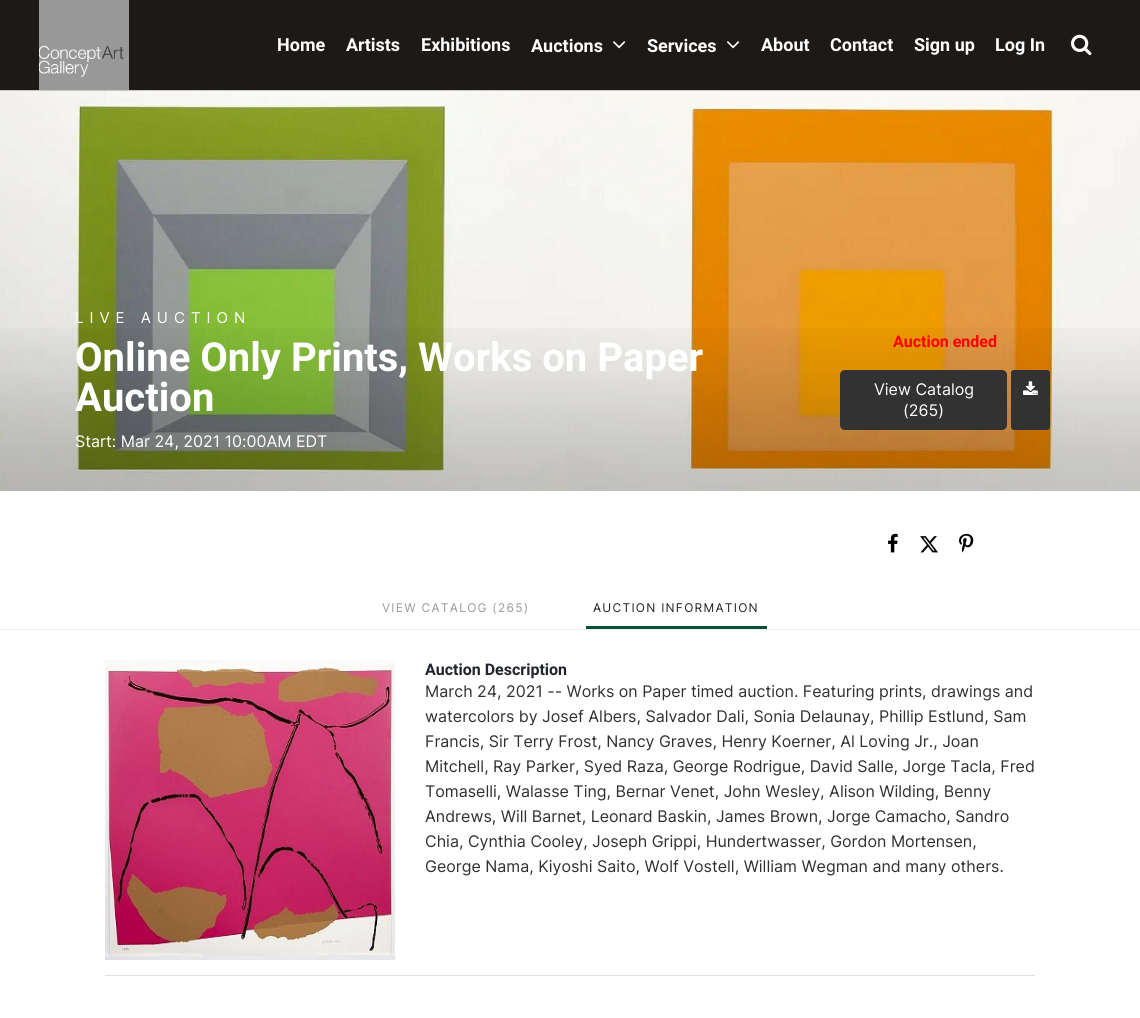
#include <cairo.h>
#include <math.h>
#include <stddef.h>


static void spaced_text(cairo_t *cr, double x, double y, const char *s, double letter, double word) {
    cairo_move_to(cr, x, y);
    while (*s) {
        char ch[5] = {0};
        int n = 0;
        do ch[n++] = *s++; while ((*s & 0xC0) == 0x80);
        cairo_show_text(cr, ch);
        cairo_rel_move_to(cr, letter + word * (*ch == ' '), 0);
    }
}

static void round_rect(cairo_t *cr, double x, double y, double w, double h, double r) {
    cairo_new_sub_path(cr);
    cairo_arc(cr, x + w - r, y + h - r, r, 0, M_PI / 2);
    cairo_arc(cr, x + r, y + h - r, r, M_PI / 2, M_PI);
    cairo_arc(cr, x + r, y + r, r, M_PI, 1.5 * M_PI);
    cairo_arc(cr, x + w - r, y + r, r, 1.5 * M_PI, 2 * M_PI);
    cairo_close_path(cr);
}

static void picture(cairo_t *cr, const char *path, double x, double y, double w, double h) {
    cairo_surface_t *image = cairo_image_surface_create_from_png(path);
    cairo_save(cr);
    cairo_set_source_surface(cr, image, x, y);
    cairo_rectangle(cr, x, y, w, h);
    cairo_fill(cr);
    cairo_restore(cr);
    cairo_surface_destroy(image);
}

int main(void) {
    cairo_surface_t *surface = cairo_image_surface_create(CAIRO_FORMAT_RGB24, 1140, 1018);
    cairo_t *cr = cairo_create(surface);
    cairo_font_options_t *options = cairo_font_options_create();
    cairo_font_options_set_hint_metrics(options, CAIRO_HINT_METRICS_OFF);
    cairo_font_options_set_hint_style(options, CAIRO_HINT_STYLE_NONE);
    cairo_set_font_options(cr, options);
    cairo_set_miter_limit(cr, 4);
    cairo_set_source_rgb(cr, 1, 1, 1);
    cairo_paint(cr);
    cairo_set_source_rgb(cr, 0.11, 0.098, 0.09);
    cairo_rectangle(cr, 0, 0, 1140, 90);
    cairo_fill(cr);
    cairo_set_source_rgb(cr, 0.788, 0.776, 0.776);
    cairo_rectangle(cr, 0, 90, 1140, 1);
    cairo_fill(cr);
    picture(cr, "img1.png", 39, 0, 90, 90);
    cairo_select_font_face(cr, "Roboto", CAIRO_FONT_SLANT_NORMAL, CAIRO_FONT_WEIGHT_BOLD);
    cairo_set_font_size(cr, 18);
    cairo_set_source_rgb(cr, 1, 1, 1);
    cairo_move_to(cr, 277, 51);
    cairo_show_text(cr, "Home");
    cairo_move_to(cr, 346, 51);
    cairo_show_text(cr, "Artists");
    cairo_move_to(cr, 421, 51);
    cairo_show_text(cr, "Exhibitions");
    cairo_move_to(cr, 531, 52);
    cairo_show_text(cr, "Auctions");
    picture(cr, "img2.png", 613, 41, 13, 8);
    cairo_move_to(cr, 647, 52);
    cairo_show_text(cr, "Services");
    picture(cr, "img2.png", 727, 41, 13, 8);
    cairo_move_to(cr, 761, 51);
    cairo_show_text(cr, "About");
    cairo_move_to(cr, 830, 51);
    cairo_show_text(cr, "Contact");
    cairo_move_to(cr, 914, 51);
    cairo_show_text(cr, "Sign up");
    cairo_move_to(cr, 995, 51);
    cairo_show_text(cr, "Log In");
    picture(cr, "img3.png", 1071, 34, 21, 22);
    picture(cr, "img4.png", 0, 91, 1140, 400);
    cairo_select_font_face(cr, "Inter", CAIRO_FONT_SLANT_NORMAL, CAIRO_FONT_WEIGHT_NORMAL);
    cairo_set_font_size(cr, 15);
    spaced_text(cr, 75, 323, "LIVE AUCTION", 6, 0);
    picture(cr, "img6.png", 0, 328, 1140, 163);
    cairo_select_font_face(cr, "Roboto", CAIRO_FONT_SLANT_NORMAL, CAIRO_FONT_WEIGHT_BOLD);
    cairo_set_font_size(cr, 40);
    cairo_move_to(cr, 75, 371);
    cairo_show_text(cr, "Online Only Prints, Works on Paper");
    cairo_move_to(cr, 75, 411);
    cairo_show_text(cr, "Auction");
    cairo_select_font_face(cr, "Inter", CAIRO_FONT_SLANT_NORMAL, CAIRO_FONT_WEIGHT_NORMAL);
    cairo_set_font_size(cr, 16);
    cairo_move_to(cr, 75, 447);
    cairo_show_text(cr, "Start: Mar 24, 2021 10:00AM EDT");
    cairo_select_font_face(cr, "Roboto", CAIRO_FONT_SLANT_NORMAL, CAIRO_FONT_WEIGHT_BOLD);
    cairo_set_source_rgb(cr, 1, 0, 0);
    cairo_move_to(cr, 893, 347);
    cairo_show_text(cr, "Auction ended");
    cairo_set_source_rgb(cr, 0.2, 0.196, 0.196);
    round_rect(cr, 840, 370, 167, 60, 5);
    cairo_fill(cr);
    cairo_select_font_face(cr, "Inter", CAIRO_FONT_SLANT_NORMAL, CAIRO_FONT_WEIGHT_NORMAL);
    cairo_set_source_rgb(cr, 1, 1, 1);
    cairo_move_to(cr, 874, 395);
    cairo_show_text(cr, "View Catalog");
    cairo_move_to(cr, 903, 416);
    cairo_show_text(cr, "(265)");
    cairo_set_source_rgb(cr, 0.2, 0.196, 0.196);
    round_rect(cr, 1011, 370, 39, 60, 3);
    cairo_fill(cr);
    picture(cr, "img5.png", 1023, 381, 15, 14);
    picture(cr, "img7.png", 888, 533, 10, 20);
    picture(cr, "img8.png", 920, 536, 18, 17);
    picture(cr, "img9.png", 959, 533, 15, 20);
    cairo_set_source_rgb(cr, 0.933, 0.933, 0.933);
    cairo_rectangle(cr, 0, 629, 1140, 1);
    cairo_fill(cr);
    cairo_set_font_size(cr, 12);
    cairo_set_source_rgb(cr, 0.6, 0.6, 0.6);
    spaced_text(cr, 382, 612, "VIEW CATALOG (265)", 1.25, 0);
    cairo_set_source_rgb(cr, 0.133, 0.133, 0.133);
    spaced_text(cr, 593, 612, "AUCTION INFORMATION", 1.25, 0);
    cairo_set_source_rgb(cr, 0, 0.322, 0.224);
    cairo_rectangle(cr, 586, 626, 181, 3);
    cairo_fill(cr);
    cairo_set_source_rgb(cr, 0.878, 0.878, 0.878);
    cairo_rectangle(cr, 105, 975, 930, 1);
    cairo_fill(cr);
    picture(cr, "img10.png", 105, 660, 290, 300);
    cairo_select_font_face(cr, "Roboto", CAIRO_FONT_SLANT_NORMAL, CAIRO_FONT_WEIGHT_BOLD);
    cairo_set_font_size(cr, 16);
    cairo_set_source_rgb(cr, 0.129, 0.145, 0.161);
    cairo_move_to(cr, 425, 675);
    cairo_show_text(cr, "Auction Description");
    cairo_select_font_face(cr, "Inter", CAIRO_FONT_SLANT_NORMAL, CAIRO_FONT_WEIGHT_NORMAL);
    cairo_set_source_rgb(cr, 0.188, 0.188, 0.188);
    cairo_move_to(cr, 425, 697);
    cairo_show_text(cr, "March 24, 2021 -- Works on Paper timed auction. Featuring prints, drawings and");
    cairo_move_to(cr, 425, 722);
    cairo_show_text(cr, "watercolors by Josef Albers, Salvador Dali, Sonia Delaunay, Phillip Estlund, Sam");
    cairo_move_to(cr, 425, 747);
    cairo_show_text(cr, "Francis, Sir Terry Frost, Nancy Graves, Henry Koerner, Al Loving Jr., Joan");
    cairo_move_to(cr, 425, 772);
    cairo_show_text(cr, "Mitchell, Ray Parker, Syed Raza, George Rodrigue, David Salle, Jorge Tacla, Fred");
    cairo_move_to(cr, 425, 797);
    cairo_show_text(cr, "Tomaselli, Walasse Ting, Bernar Venet, John Wesley, Alison Wilding, Benny");
    cairo_move_to(cr, 425, 822);
    cairo_show_text(cr, "Andrews, Will Barnet, Leonard Baskin, James Brown, Jorge Camacho, Sandro");
    cairo_move_to(cr, 425, 847);
    cairo_show_text(cr, "Chia, Cynthia Cooley, Joseph Grippi, Hundertwasser, Gordon Mortensen,");
    cairo_move_to(cr, 425, 872);
    cairo_show_text(cr, "George Nama, Kiyoshi Saito, Wolf Vostell, William Wegman and many others.");
    cairo_surface_write_to_png(surface, "page.png");
    cairo_font_options_destroy(options);
    cairo_destroy(cr);
    cairo_surface_destroy(surface);
    return 0;
}
